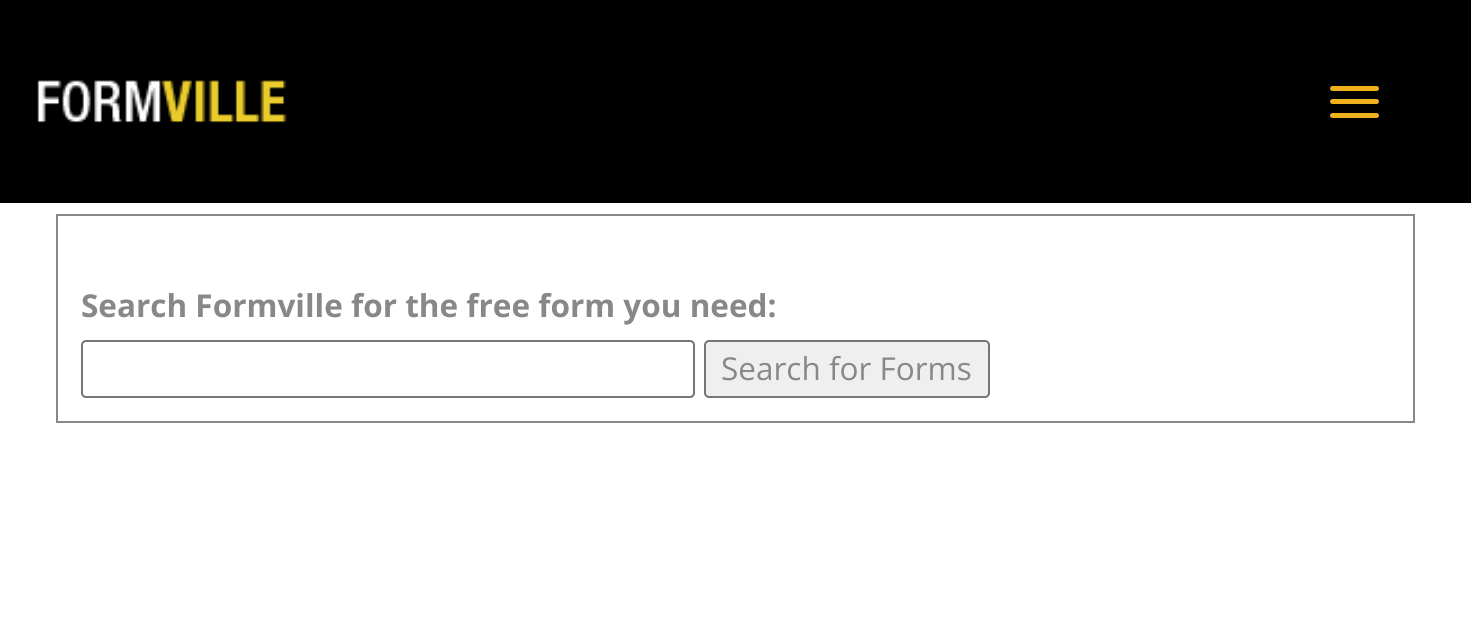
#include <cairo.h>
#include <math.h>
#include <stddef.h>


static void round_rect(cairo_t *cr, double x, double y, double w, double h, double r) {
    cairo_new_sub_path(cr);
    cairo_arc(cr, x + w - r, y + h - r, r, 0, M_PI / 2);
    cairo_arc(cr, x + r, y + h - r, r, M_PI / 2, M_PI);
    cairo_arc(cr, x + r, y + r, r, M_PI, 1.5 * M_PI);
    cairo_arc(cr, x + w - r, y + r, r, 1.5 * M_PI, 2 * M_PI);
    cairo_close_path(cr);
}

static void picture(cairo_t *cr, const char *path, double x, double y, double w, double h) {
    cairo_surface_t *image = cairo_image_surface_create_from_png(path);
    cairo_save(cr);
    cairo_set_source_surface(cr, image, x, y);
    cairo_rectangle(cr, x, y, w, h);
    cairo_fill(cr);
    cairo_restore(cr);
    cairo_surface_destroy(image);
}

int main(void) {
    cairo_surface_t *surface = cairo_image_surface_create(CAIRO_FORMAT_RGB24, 1471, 631);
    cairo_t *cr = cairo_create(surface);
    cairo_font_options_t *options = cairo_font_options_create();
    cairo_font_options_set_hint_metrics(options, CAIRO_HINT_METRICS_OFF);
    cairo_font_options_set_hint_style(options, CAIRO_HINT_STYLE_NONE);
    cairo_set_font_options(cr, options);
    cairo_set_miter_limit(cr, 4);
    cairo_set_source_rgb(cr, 1, 1, 1);
    cairo_paint(cr);
    cairo_set_source_rgb(cr, 0, 0, 0);
    cairo_rectangle(cr, 0, 0, 1471, 203);
    cairo_fill(cr);
    picture(cr, "img1.png", 37, 80, 250, 43);
    cairo_set_source_rgb(cr, 0.937, 0.698, 0.114);
    round_rect(cr, 1330, 86, 49, 5, 2.5);
    cairo_fill(cr);
    round_rect(cr, 1330, 99, 49, 5, 2.5);
    cairo_fill(cr);
    round_rect(cr, 1330, 113, 49, 5, 2.5);
    cairo_fill(cr);
    cairo_rectangle(cr, 57, 215, 1357, 207);
    cairo_set_source_rgb(cr, 0.533, 0.533, 0.533);
    cairo_stroke(cr);
    cairo_select_font_face(cr, "Open Sans", CAIRO_FONT_SLANT_NORMAL, CAIRO_FONT_WEIGHT_BOLD);
    cairo_set_font_size(cr, 31.5);
    cairo_move_to(cr, 81, 317);
    cairo_show_text(cr, "Search Formville for the free form you need:");
    round_rect(cr, 82, 341, 612, 56, 4);
    cairo_set_source_rgb(cr, 0.463, 0.463, 0.463);
    cairo_stroke(cr);
    cairo_set_source_rgb(cr, 0.937, 0.937, 0.937);
    round_rect(cr, 705, 341, 284, 56, 4);
    cairo_fill_preserve(cr);
    cairo_set_source_rgb(cr, 0.463, 0.463, 0.463);
    cairo_stroke(cr);
    cairo_select_font_face(cr, "Open Sans", CAIRO_FONT_SLANT_NORMAL, CAIRO_FONT_WEIGHT_NORMAL);
    cairo_set_source_rgb(cr, 0.533, 0.533, 0.533);
    cairo_move_to(cr, 721, 380);
    cairo_show_text(cr, "Search for Forms");
    cairo_surface_write_to_png(surface, "page.png");
    cairo_font_options_destroy(options);
    cairo_destroy(cr);
    cairo_surface_destroy(surface);
    return 0;
}
